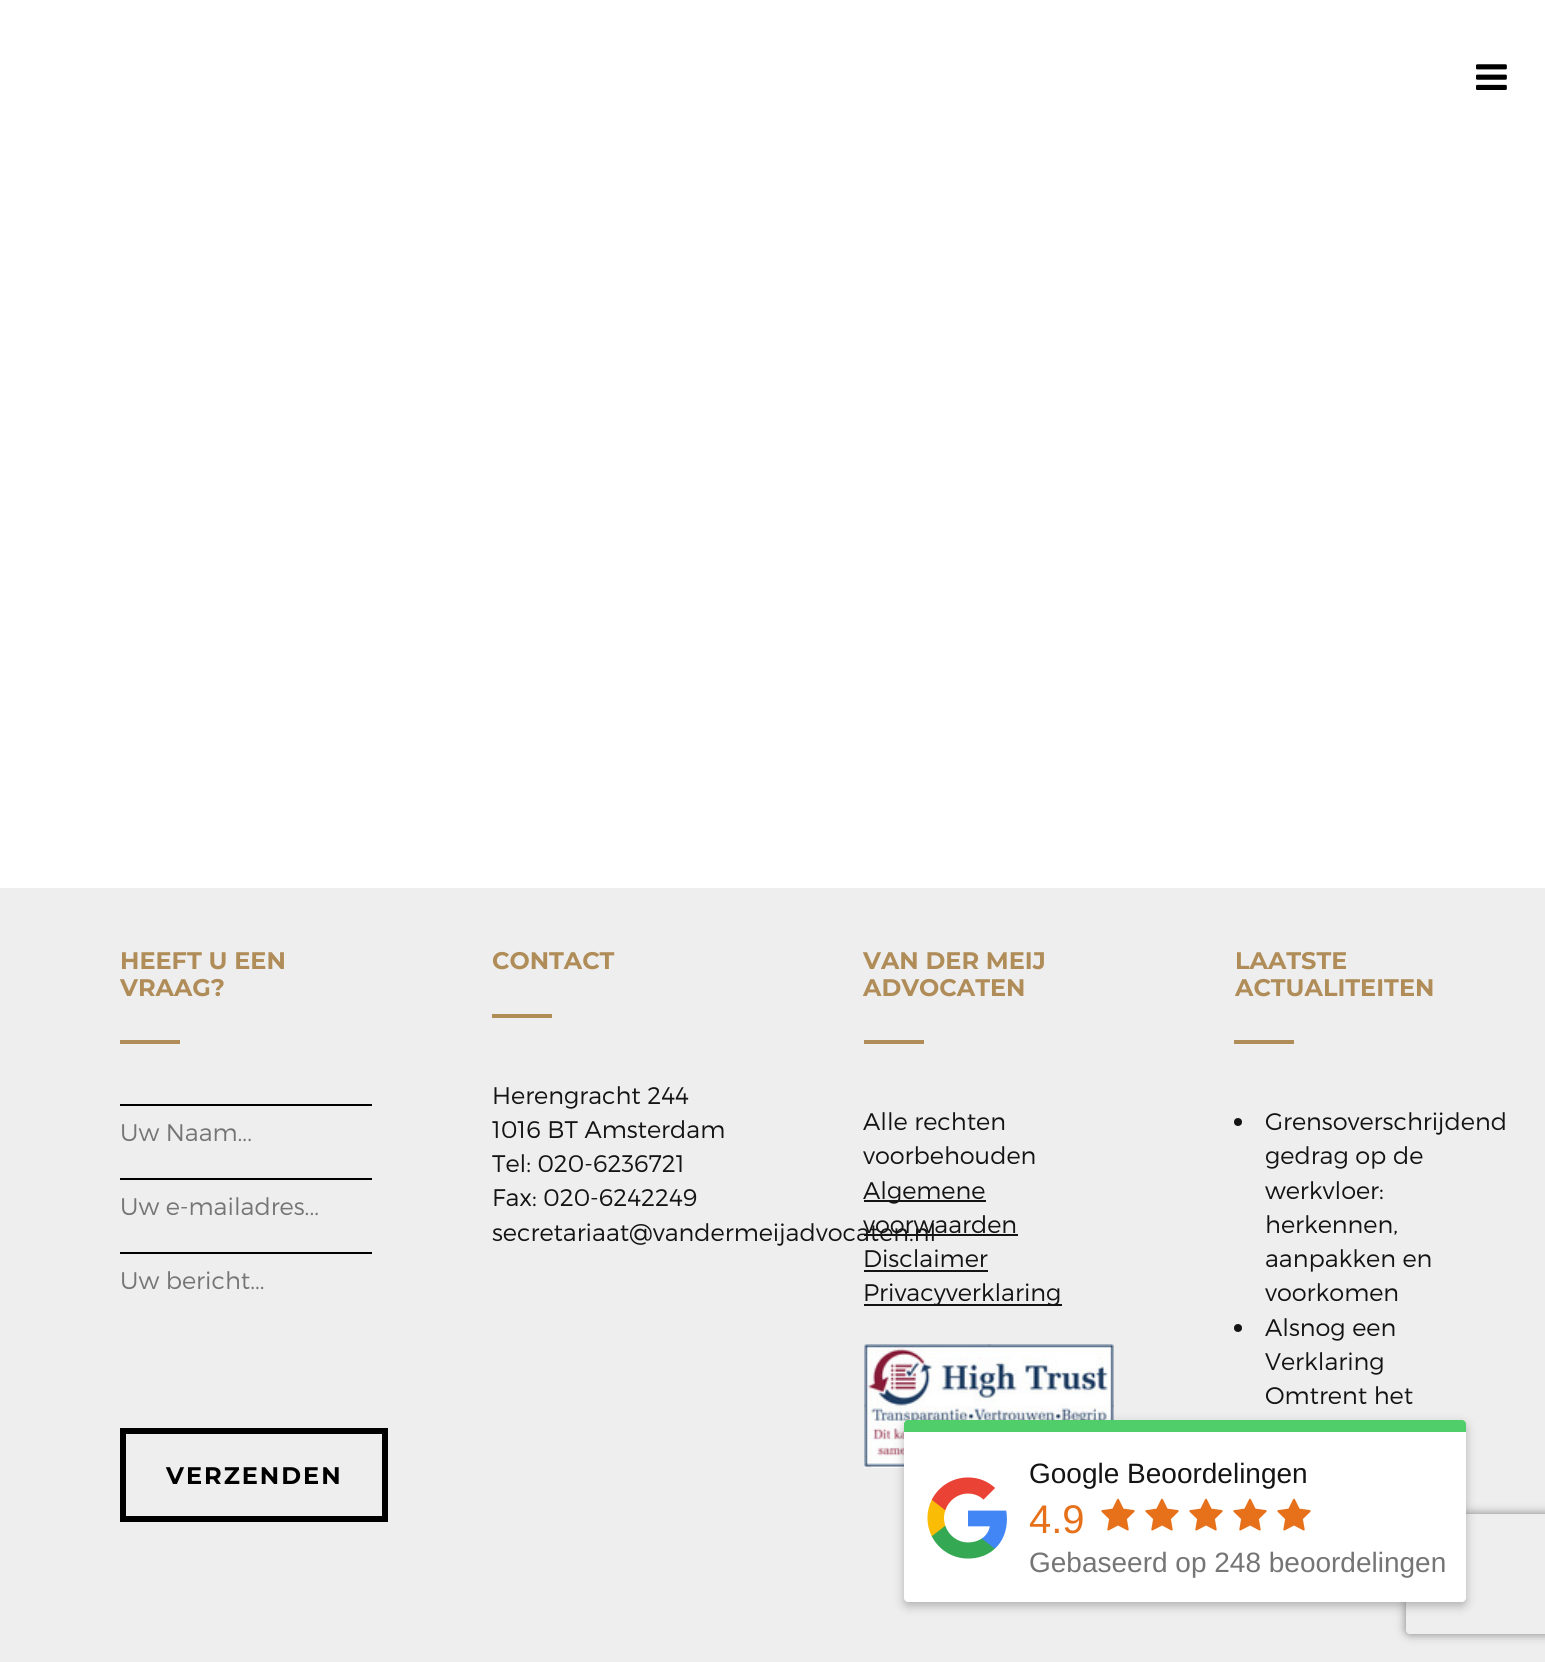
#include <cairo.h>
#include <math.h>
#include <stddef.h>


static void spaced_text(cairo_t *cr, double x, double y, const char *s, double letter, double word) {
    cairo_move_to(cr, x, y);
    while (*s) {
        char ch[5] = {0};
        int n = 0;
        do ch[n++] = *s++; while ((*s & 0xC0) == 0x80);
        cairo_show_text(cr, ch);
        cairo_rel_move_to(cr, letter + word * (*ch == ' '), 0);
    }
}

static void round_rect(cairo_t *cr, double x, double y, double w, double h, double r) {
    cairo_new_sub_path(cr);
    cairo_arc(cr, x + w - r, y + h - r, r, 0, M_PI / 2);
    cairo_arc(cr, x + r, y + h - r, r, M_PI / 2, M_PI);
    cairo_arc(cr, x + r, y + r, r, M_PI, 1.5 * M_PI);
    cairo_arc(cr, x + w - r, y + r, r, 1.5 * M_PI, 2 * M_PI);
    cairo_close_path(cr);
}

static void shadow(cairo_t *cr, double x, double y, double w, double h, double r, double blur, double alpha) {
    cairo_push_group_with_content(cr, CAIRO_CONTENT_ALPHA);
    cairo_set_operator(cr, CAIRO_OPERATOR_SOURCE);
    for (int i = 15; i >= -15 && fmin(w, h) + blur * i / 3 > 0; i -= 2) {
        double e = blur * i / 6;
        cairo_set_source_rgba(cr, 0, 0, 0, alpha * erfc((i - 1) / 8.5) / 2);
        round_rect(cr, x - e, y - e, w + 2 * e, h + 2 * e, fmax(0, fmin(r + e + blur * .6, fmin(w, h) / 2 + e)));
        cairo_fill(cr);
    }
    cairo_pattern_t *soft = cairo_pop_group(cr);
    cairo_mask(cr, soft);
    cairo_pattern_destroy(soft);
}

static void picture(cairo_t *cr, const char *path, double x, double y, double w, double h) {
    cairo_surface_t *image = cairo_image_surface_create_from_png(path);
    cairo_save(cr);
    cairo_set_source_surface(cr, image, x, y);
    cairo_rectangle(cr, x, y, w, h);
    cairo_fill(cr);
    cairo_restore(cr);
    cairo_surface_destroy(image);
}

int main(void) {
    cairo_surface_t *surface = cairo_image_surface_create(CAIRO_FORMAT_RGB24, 1545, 1662);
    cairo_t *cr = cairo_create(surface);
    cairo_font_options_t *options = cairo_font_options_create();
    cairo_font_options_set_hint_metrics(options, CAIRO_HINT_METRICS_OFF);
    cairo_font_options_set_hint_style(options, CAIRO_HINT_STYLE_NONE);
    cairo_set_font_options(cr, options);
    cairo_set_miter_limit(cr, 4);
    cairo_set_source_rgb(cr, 1, 1, 1);
    cairo_paint(cr);
    picture(cr, "img1.png", 1476, 64, 31, 26);
    cairo_set_source_rgb(cr, 0.933, 0.933, 0.933);
    cairo_rectangle(cr, 0, 888, 1545, 774);
    cairo_fill(cr);
    cairo_select_font_face(cr, "Montserrat", CAIRO_FONT_SLANT_NORMAL, CAIRO_FONT_WEIGHT_BOLD);
    cairo_set_font_size(cr, 24);
    cairo_set_source_rgb(cr, 0.69, 0.553, 0.345);
    cairo_move_to(cr, 120, 969);
    cairo_show_text(cr, "HEEFT U EEN");
    cairo_move_to(cr, 120, 996);
    cairo_show_text(cr, "VRAAG?");
    cairo_rectangle(cr, 120, 1040, 60, 4);
    cairo_fill(cr);
    cairo_set_source_rgb(cr, 0, 0, 0);
    cairo_rectangle(cr, 120, 1104, 252, 2);
    cairo_fill(cr);
    cairo_select_font_face(cr, "Montserrat Light", CAIRO_FONT_SLANT_NORMAL, CAIRO_FONT_WEIGHT_NORMAL);
    cairo_set_source_rgb(cr, 0.459, 0.459, 0.459);
    cairo_move_to(cr, 120, 1141);
    cairo_show_text(cr, "Uw Naam...");
    cairo_set_source_rgb(cr, 0, 0, 0);
    cairo_rectangle(cr, 120, 1178, 252, 2);
    cairo_fill(cr);
    cairo_set_source_rgb(cr, 0.459, 0.459, 0.459);
    cairo_move_to(cr, 120, 1215);
    cairo_show_text(cr, "Uw e-mailadres...");
    cairo_set_source_rgb(cr, 0, 0, 0);
    cairo_rectangle(cr, 120, 1252, 252, 2);
    cairo_fill(cr);
    cairo_set_source_rgb(cr, 0.459, 0.459, 0.459);
    cairo_move_to(cr, 120, 1289);
    cairo_show_text(cr, "Uw bericht...");
    cairo_rectangle(cr, 123, 1431, 262, 88);
    cairo_set_source_rgb(cr, 0, 0, 0);
    cairo_set_line_width(cr, 6);
    cairo_stroke(cr);
    cairo_select_font_face(cr, "Montserrat", CAIRO_FONT_SLANT_NORMAL, CAIRO_FONT_WEIGHT_BOLD);
    spaced_text(cr, 166, 1484, "VERZENDEN", 2, 0);
    cairo_set_source_rgb(cr, 0.69, 0.553, 0.345);
    cairo_move_to(cr, 492, 969);
    cairo_show_text(cr, "CONTACT");
    cairo_rectangle(cr, 492, 1014, 60, 4);
    cairo_fill(cr);
    cairo_select_font_face(cr, "Montserrat Light", CAIRO_FONT_SLANT_NORMAL, CAIRO_FONT_WEIGHT_NORMAL);
    cairo_set_source_rgb(cr, 0.082, 0.082, 0.082);
    cairo_move_to(cr, 492, 1104);
    cairo_show_text(cr, "Herengracht 244");
    cairo_move_to(cr, 492, 1138);
    cairo_show_text(cr, "1016 BT Amsterdam");
    cairo_move_to(cr, 492, 1172);
    cairo_show_text(cr, "Tel: 020-6236721");
    cairo_move_to(cr, 492, 1206);
    cairo_show_text(cr, "Fax: 020-6242249");
    cairo_move_to(cr, 492, 1241);
    cairo_show_text(cr, "secretariaat@vandermeijadvocaten.nl");
    cairo_select_font_face(cr, "Montserrat", CAIRO_FONT_SLANT_NORMAL, CAIRO_FONT_WEIGHT_BOLD);
    cairo_set_source_rgb(cr, 0.69, 0.553, 0.345);
    cairo_move_to(cr, 863, 969);
    cairo_show_text(cr, "VAN DER MEIJ");
    cairo_move_to(cr, 863, 996);
    cairo_show_text(cr, "ADVOCATEN");
    cairo_rectangle(cr, 864, 1040, 60, 4);
    cairo_fill(cr);
    cairo_select_font_face(cr, "Montserrat Light", CAIRO_FONT_SLANT_NORMAL, CAIRO_FONT_WEIGHT_NORMAL);
    cairo_set_source_rgb(cr, 0.082, 0.082, 0.082);
    cairo_move_to(cr, 863, 1130);
    cairo_show_text(cr, "Alle rechten");
    cairo_move_to(cr, 863, 1164);
    cairo_show_text(cr, "voorbehouden");
    cairo_rectangle(cr, 864, 1200, 122, 2);
    cairo_fill(cr);
    cairo_move_to(cr, 863, 1199);
    cairo_show_text(cr, "Algemene");
    cairo_move_to(cr, 863, 1233);
    cairo_show_text(cr, "voorwaarden");
    cairo_rectangle(cr, 864, 1234, 154, 2);
    cairo_fill(cr);
    cairo_move_to(cr, 863, 1267);
    cairo_show_text(cr, "Disclaimer");
    cairo_rectangle(cr, 864, 1270, 124, 2);
    cairo_fill(cr);
    cairo_rectangle(cr, 864, 1304, 198, 2);
    cairo_fill(cr);
    cairo_move_to(cr, 863, 1301);
    cairo_show_text(cr, "Privacyverklaring");
    picture(cr, "img2.png", 864, 1344, 250, 124);
    cairo_select_font_face(cr, "Montserrat", CAIRO_FONT_SLANT_NORMAL, CAIRO_FONT_WEIGHT_BOLD);
    cairo_set_source_rgb(cr, 0.69, 0.553, 0.345);
    cairo_move_to(cr, 1235, 969);
    cairo_show_text(cr, "LAATSTE");
    cairo_move_to(cr, 1235, 996);
    cairo_show_text(cr, "ACTUALITEITEN");
    cairo_rectangle(cr, 1234, 1040, 60, 4);
    cairo_fill(cr);
    cairo_set_source_rgb(cr, 0.082, 0.082, 0.082);
    cairo_arc(cr, 1238, 1122, 4, 0, 2 * M_PI);
    cairo_fill(cr);
    cairo_select_font_face(cr, "Montserrat Light", CAIRO_FONT_SLANT_NORMAL, CAIRO_FONT_WEIGHT_NORMAL);
    cairo_move_to(cr, 1265, 1130);
    cairo_show_text(cr, "Grensoverschrijdend");
    cairo_move_to(cr, 1265, 1164);
    cairo_show_text(cr, "gedrag op de");
    cairo_move_to(cr, 1265, 1199);
    cairo_show_text(cr, "werkvloer:");
    cairo_move_to(cr, 1265, 1233);
    cairo_show_text(cr, "herkennen,");
    cairo_move_to(cr, 1265, 1267);
    cairo_show_text(cr, "aanpakken en");
    cairo_move_to(cr, 1265, 1301);
    cairo_show_text(cr, "voorkomen");
    cairo_new_path(cr);
    cairo_arc(cr, 1238, 1328, 4, 0, 2 * M_PI);
    cairo_fill(cr);
    cairo_move_to(cr, 1265, 1336);
    cairo_show_text(cr, "Alsnog een");
    cairo_move_to(cr, 1265, 1370);
    cairo_show_text(cr, "Verklaring");
    cairo_move_to(cr, 1265, 1404);
    cairo_show_text(cr, "Omtrent het");
    cairo_set_source_rgb(cr, 0, 0, 0);
    shadow(cr, 904, 1424, 562, 182, 4, 5, 0.26);
    cairo_set_source_rgb(cr, 0.31, 0.808, 0.416);
    cairo_new_path(cr);
    cairo_move_to(cr, 908, 1420);
    cairo_line_to(cr, 1462, 1420);
    cairo_curve_to(cr, 1464, 1420, 1466, 1422, 1466, 1424);
    cairo_line_to(cr, 1466, 1432);
    cairo_line_to(cr, 904, 1432);
    cairo_line_to(cr, 904, 1424);
    cairo_curve_to(cr, 904, 1422, 906, 1420, 908, 1420);
    cairo_close_path(cr);
    cairo_fill(cr);
    cairo_save(cr);
    cairo_set_fill_rule(cr, CAIRO_FILL_RULE_EVEN_ODD);
    cairo_new_path(cr);
    cairo_move_to(cr, 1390, 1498);
    cairo_line_to(cr, 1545, 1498);
    cairo_line_to(cr, 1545, 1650);
    cairo_line_to(cr, 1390, 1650);
    cairo_close_path(cr);
    cairo_move_to(cr, 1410, 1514);
    cairo_line_to(cr, 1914, 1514);
    cairo_curve_to(cr, 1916, 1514, 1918, 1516, 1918, 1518);
    cairo_line_to(cr, 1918, 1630);
    cairo_curve_to(cr, 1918, 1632, 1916, 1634, 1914, 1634);
    cairo_line_to(cr, 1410, 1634);
    cairo_curve_to(cr, 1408, 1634, 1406, 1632, 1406, 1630);
    cairo_line_to(cr, 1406, 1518);
    cairo_curve_to(cr, 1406, 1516, 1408, 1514, 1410, 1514);
    cairo_close_path(cr);
    cairo_clip(cr);
    cairo_set_source_rgb(cr, 0.502, 0.502, 0.502);
    shadow(cr, 1406, 1514, 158, 120, 4, 5, 1);
    cairo_restore(cr);
    cairo_set_source_rgb(cr, 1, 1, 1);
    cairo_new_path(cr);
    cairo_move_to(cr, 904, 1432);
    cairo_line_to(cr, 1466, 1432);
    cairo_line_to(cr, 1466, 1598);
    cairo_curve_to(cr, 1466, 1600, 1464, 1602, 1462, 1602);
    cairo_line_to(cr, 908, 1602);
    cairo_curve_to(cr, 906, 1602, 904, 1600, 904, 1598);
    cairo_close_path(cr);
    cairo_fill(cr);
    picture(cr, "img3.png", 927, 1477, 80, 82);
    cairo_select_font_face(cr, "Liberation Sans", CAIRO_FONT_SLANT_NORMAL, CAIRO_FONT_WEIGHT_NORMAL);
    cairo_set_font_size(cr, 28);
    cairo_set_source_rgb(cr, 0.082, 0.082, 0.082);
    cairo_move_to(cr, 1029, 1483);
    cairo_show_text(cr, "Google Beoordelingen");
    cairo_set_font_size(cr, 40);
    cairo_set_source_rgb(cr, 0.906, 0.443, 0.106);
    cairo_move_to(cr, 1029, 1533);
    cairo_show_text(cr, "4.9");
    picture(cr, "img4.png", 1101, 1498, 34, 33);
    picture(cr, "img4.png", 1145, 1498, 34, 33);
    picture(cr, "img4.png", 1189, 1498, 34, 33);
    picture(cr, "img4.png", 1233, 1498, 34, 33);
    picture(cr, "img4.png", 1277, 1498, 34, 33);
    cairo_set_font_size(cr, 28);
    cairo_set_source_rgb(cr, 0.459, 0.459, 0.459);
    cairo_move_to(cr, 1029, 1572);
    cairo_show_text(cr, "Gebaseerd op 248 beoordelingen");
    cairo_surface_write_to_png(surface, "page.png");
    cairo_font_options_destroy(options);
    cairo_destroy(cr);
    cairo_surface_destroy(surface);
    return 0;
}
